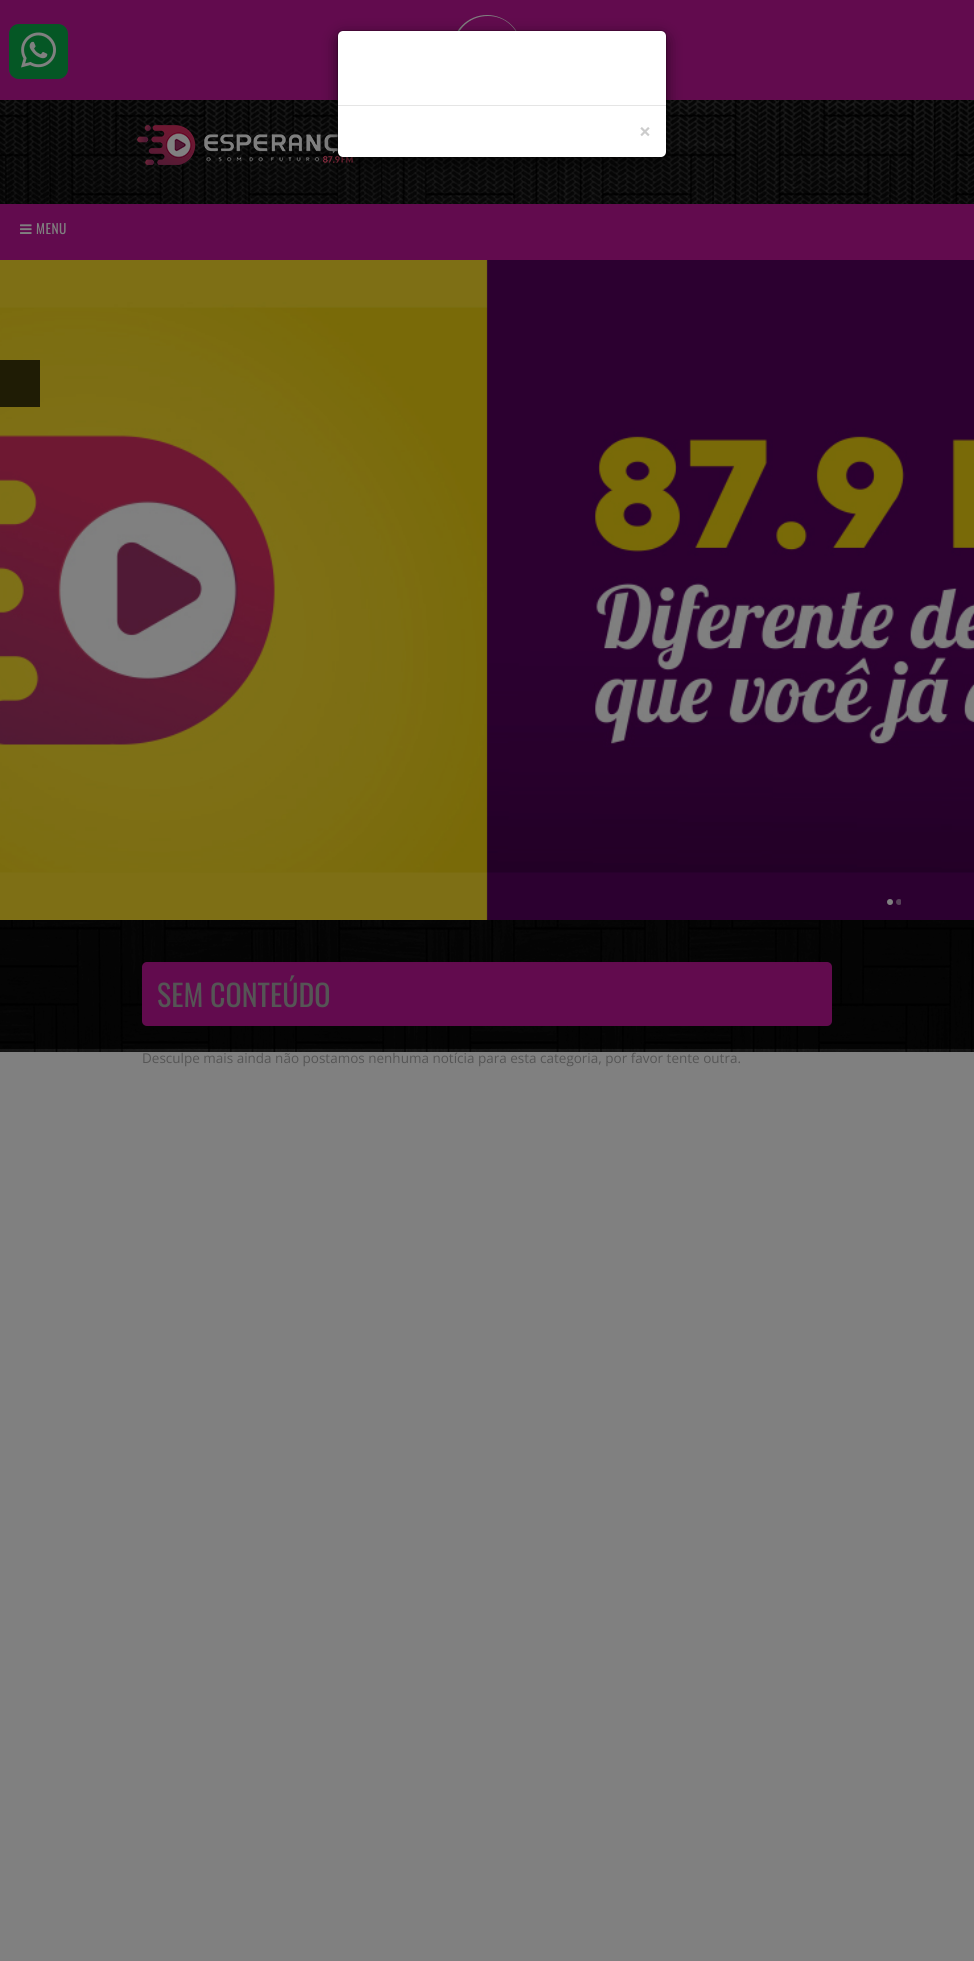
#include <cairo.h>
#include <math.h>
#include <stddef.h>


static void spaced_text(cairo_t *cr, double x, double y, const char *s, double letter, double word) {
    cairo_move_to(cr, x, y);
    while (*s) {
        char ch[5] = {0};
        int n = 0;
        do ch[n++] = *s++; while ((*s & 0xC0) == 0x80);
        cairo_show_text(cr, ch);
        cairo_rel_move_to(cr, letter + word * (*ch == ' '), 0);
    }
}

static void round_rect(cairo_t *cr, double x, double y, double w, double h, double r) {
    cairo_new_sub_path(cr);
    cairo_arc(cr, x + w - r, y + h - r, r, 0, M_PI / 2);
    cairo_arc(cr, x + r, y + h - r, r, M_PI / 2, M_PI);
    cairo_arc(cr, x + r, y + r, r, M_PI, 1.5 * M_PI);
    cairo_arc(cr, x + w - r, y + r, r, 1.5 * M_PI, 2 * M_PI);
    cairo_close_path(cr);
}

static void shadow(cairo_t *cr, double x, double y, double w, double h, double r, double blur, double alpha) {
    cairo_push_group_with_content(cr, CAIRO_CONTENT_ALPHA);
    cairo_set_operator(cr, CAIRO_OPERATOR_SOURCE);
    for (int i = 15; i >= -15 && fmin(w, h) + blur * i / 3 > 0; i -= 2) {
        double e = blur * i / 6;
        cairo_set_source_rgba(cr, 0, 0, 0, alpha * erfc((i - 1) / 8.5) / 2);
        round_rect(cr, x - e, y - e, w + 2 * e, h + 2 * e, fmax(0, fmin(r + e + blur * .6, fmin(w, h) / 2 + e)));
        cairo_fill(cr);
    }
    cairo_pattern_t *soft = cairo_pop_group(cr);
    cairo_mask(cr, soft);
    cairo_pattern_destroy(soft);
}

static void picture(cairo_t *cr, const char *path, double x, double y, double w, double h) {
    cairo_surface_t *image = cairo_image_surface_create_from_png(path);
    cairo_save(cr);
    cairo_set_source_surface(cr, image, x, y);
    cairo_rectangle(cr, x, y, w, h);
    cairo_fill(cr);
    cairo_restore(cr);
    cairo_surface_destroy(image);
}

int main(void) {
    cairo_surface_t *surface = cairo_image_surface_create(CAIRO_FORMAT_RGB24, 974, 1961);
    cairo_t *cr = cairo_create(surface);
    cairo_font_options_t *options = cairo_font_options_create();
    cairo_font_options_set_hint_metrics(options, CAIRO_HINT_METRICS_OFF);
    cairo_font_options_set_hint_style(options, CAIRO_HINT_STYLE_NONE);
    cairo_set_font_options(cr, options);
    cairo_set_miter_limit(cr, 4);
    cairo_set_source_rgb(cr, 0.502, 0.502, 0.502);
    cairo_paint(cr);
    picture(cr, "img1.png", 0, 100, 974, 952);
    cairo_set_source_rgb(cr, 0.384, 0.043, 0.306);
    cairo_rectangle(cr, 0, 0, 974, 100);
    cairo_fill(cr);
    cairo_set_source_rgb(cr, 0.502, 0.502, 0.502);
    round_rect(cr, 452, 15, 70, 71, 35);
    cairo_fill(cr);
    cairo_set_source_rgb(cr, 0.384, 0.043, 0.306);
    cairo_new_path(cr);
    cairo_move_to(cr, 488, 16);
    cairo_curve_to(cr, 455, 16, 441, 58, 467, 78);
    cairo_curve_to(cr, 473, 82, 480, 85, 488, 85);
    cairo_curve_to(cr, 495, 85, 502, 82, 508, 78);
    cairo_curve_to(cr, 534, 58, 520, 16, 488, 16);
    cairo_close_path(cr);
    cairo_move_to(cr, 504, 54);
    cairo_line_to(cr, 478, 68);
    cairo_curve_to(cr, 473, 69, 474, 62, 474, 60);
    cairo_line_to(cr, 474, 41);
    cairo_curve_to(cr, 474, 38, 473, 35, 476, 33);
    cairo_curve_to(cr, 479, 31, 485, 37, 487, 38);
    cairo_line_to(cr, 495, 43);
    cairo_curve_to(cr, 497, 44, 510, 50, 504, 54);
    cairo_close_path(cr);
    cairo_fill(cr);
    cairo_set_source_rgb(cr, 0.027, 0.38, 0.161);
    round_rect(cr, 9, 24, 59, 55, 10);
    cairo_fill(cr);
    cairo_set_source_rgba(cr, 0, 0, 0, 0.1);
    round_rect(cr, 9, 24, 59, 55, 10);
    cairo_fill(cr);
    picture(cr, "img2.png", 21, 32, 35, 36);
    picture(cr, "img3.png", 137, 125, 216, 40);
    cairo_set_source_rgb(cr, 0, 0, 0);
    shadow(cr, 337, 35, 330, 128, 6, 7.5, 0.5);
    cairo_set_source_rgb(cr, 1, 1, 1);
    round_rect(cr, 338, 31, 328, 126, 5);
    cairo_fill(cr);
    round_rect(cr, 337.5, 30.5, 329, 127, 5.5);
    cairo_set_source_rgba(cr, 0, 0, 0, 0.2);
    cairo_set_line_width(cr, 1);
    cairo_stroke(cr);
    cairo_set_source_rgb(cr, 0.898, 0.898, 0.898);
    cairo_rectangle(cr, 338, 105, 328, 1);
    cairo_fill(cr);
    cairo_select_font_face(cr, "Open Sans", CAIRO_FONT_SLANT_NORMAL, CAIRO_FONT_WEIGHT_BOLD);
    cairo_set_font_size(cr, 21);
    cairo_set_source_rgb(cr, 0.8, 0.8, 0.8);
    cairo_move_to(cr, 639, 139);
    cairo_show_text(cr, "×");
    cairo_set_source_rgb(cr, 0.384, 0.043, 0.306);
    cairo_rectangle(cr, 0, 204, 974, 56);
    cairo_fill(cr);
    picture(cr, "img4.png", 20, 224, 12, 10);
    cairo_select_font_face(cr, "Oswald", CAIRO_FONT_SLANT_NORMAL, CAIRO_FONT_WEIGHT_NORMAL);
    cairo_set_font_size(cr, 13.5);
    cairo_set_source_rgb(cr, 0.502, 0.502, 0.502);
    spaced_text(cr, 36, 234, "MENU", 0.5, 0);
    picture(cr, "img5.png", 0, 260, 974, 660);
    cairo_set_source_rgba(cr, 0, 0, 0, 0.75);
    cairo_rectangle(cr, 0, 360, 40, 47);
    cairo_fill(cr);
    cairo_set_source_rgb(cr, 0.502, 0.502, 0.502);
    cairo_arc(cr, 890, 902, 3, 0, 2 * M_PI);
    cairo_fill(cr);
    cairo_save(cr);
    cairo_rectangle(cr, 883, 889, 18, 16);
    cairo_clip(cr);
    cairo_set_source_rgba(cr, 0.502, 0.502, 0.502, 0.5);
    cairo_arc(cr, 899, 902, 3, 0, 2 * M_PI);
    cairo_fill(cr);
    cairo_restore(cr);
    cairo_set_source_rgb(cr, 0.384, 0.043, 0.306);
    round_rect(cr, 142, 962, 690, 64, 5);
    cairo_fill(cr);
    cairo_set_font_size(cr, 30);
    cairo_set_source_rgb(cr, 0.333, 0.333, 0.333);
    cairo_move_to(cr, 157, 1007);
    cairo_show_text(cr, "SEM CONTEÚDO");
    cairo_select_font_face(cr, "Open Sans", CAIRO_FONT_SLANT_NORMAL, CAIRO_FONT_WEIGHT_NORMAL);
    cairo_set_font_size(cr, 13.5);
    cairo_move_to(cr, 142, 1063);
    cairo_show_text(cr, "Desculpe mais ainda não postamos nenhuma notícia para esta categoria, por favor tente outra.");
    cairo_surface_write_to_png(surface, "page.png");
    cairo_font_options_destroy(options);
    cairo_destroy(cr);
    cairo_surface_destroy(surface);
    return 0;
}
